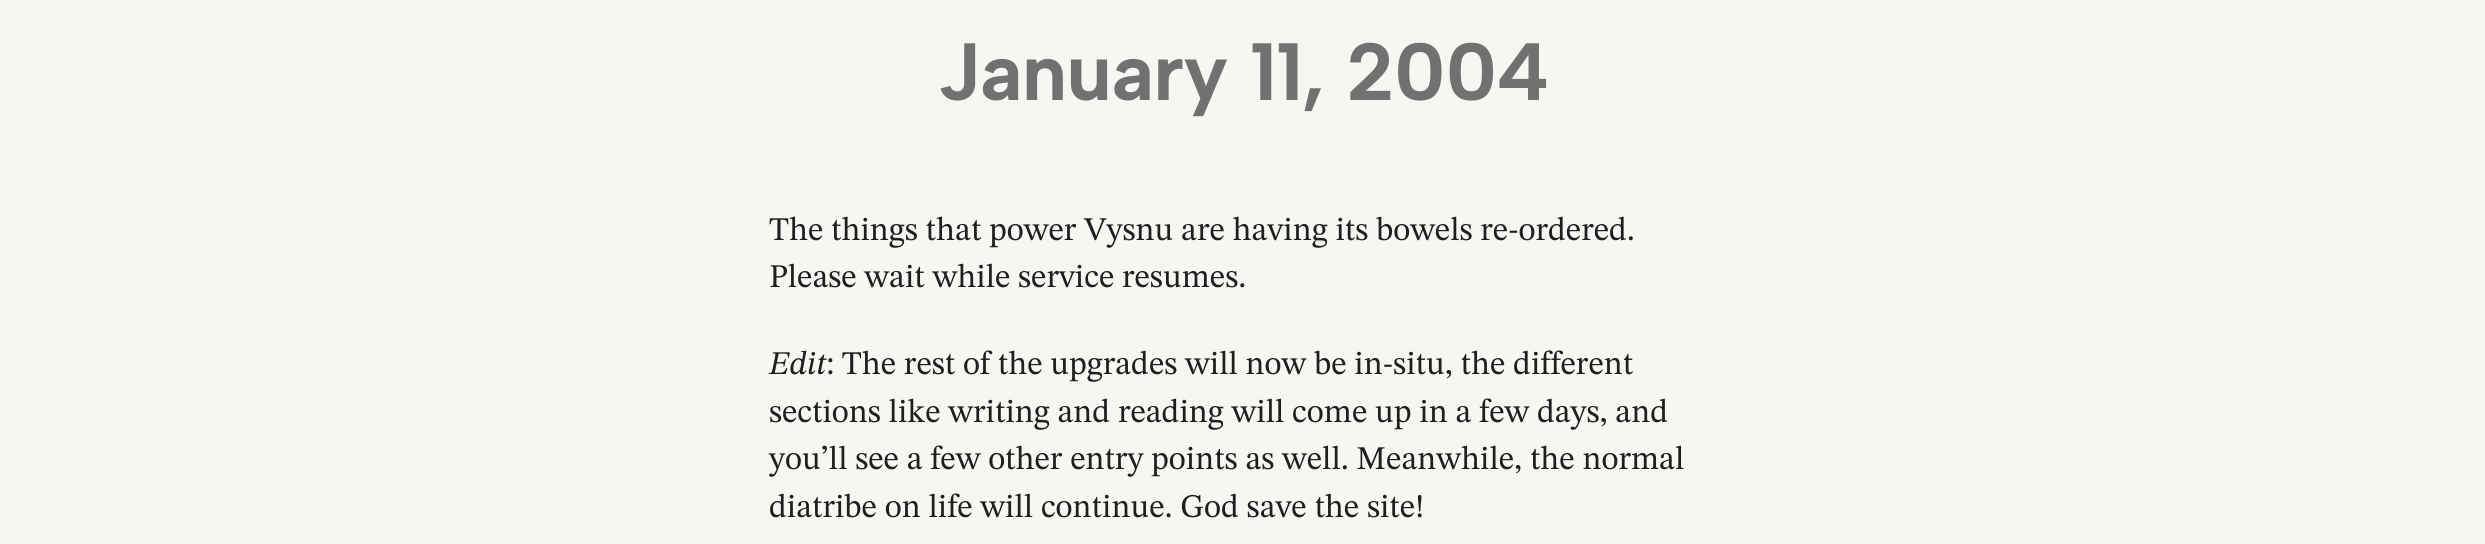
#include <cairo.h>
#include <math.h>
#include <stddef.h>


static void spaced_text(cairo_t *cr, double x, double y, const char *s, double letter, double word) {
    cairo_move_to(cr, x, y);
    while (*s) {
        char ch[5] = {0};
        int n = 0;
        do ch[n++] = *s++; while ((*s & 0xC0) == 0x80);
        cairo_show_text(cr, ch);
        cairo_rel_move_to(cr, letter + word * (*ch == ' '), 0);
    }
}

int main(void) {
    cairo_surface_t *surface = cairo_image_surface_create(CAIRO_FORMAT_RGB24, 2485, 544);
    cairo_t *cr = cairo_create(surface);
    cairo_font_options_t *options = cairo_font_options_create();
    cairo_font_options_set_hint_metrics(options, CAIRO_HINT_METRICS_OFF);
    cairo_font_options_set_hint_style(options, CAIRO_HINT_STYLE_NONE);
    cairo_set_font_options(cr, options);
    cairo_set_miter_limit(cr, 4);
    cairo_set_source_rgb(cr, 0.969, 0.961, 0.953);
    cairo_paint(cr);
    cairo_select_font_face(cr, "Albert Sans", CAIRO_FONT_SLANT_NORMAL, CAIRO_FONT_WEIGHT_BOLD);
    cairo_set_font_size(cr, 81);
    cairo_set_source_rgb(cr, 0.439, 0.443, 0.439);
    spaced_text(cr, 937, 100, "January 11, 2004", -0.75, 0);
    cairo_select_font_face(cr, "STIX Two Text", CAIRO_FONT_SLANT_NORMAL, CAIRO_FONT_WEIGHT_NORMAL);
    cairo_set_font_size(cr, 33);
    cairo_set_source_rgb(cr, 0.114, 0.125, 0.122);
    cairo_move_to(cr, 769, 240);
    cairo_show_text(cr, "The things that power Vysnu are having its bowels re-ordered.");
    cairo_move_to(cr, 769, 287);
    cairo_show_text(cr, "Please wait while service resumes.");
    cairo_select_font_face(cr, "STIX Two Text", CAIRO_FONT_SLANT_ITALIC, CAIRO_FONT_WEIGHT_NORMAL);
    cairo_move_to(cr, 769, 374);
    cairo_show_text(cr, "Edit");
    cairo_select_font_face(cr, "STIX Two Text", CAIRO_FONT_SLANT_NORMAL, CAIRO_FONT_WEIGHT_NORMAL);
    cairo_move_to(cr, 826, 374);
    cairo_show_text(cr, ": The rest of the upgrades will now be in-situ, the different");
    cairo_move_to(cr, 769, 422);
    cairo_show_text(cr, "sections like writing and reading will come up in a few days, and");
    cairo_move_to(cr, 769, 469);
    cairo_show_text(cr, "you’ll see a few other entry points as well. Meanwhile, the normal");
    cairo_move_to(cr, 769, 517);
    cairo_show_text(cr, "diatribe on life will continue. God save the site!");
    cairo_surface_write_to_png(surface, "page.png");
    cairo_font_options_destroy(options);
    cairo_destroy(cr);
    cairo_surface_destroy(surface);
    return 0;
}
